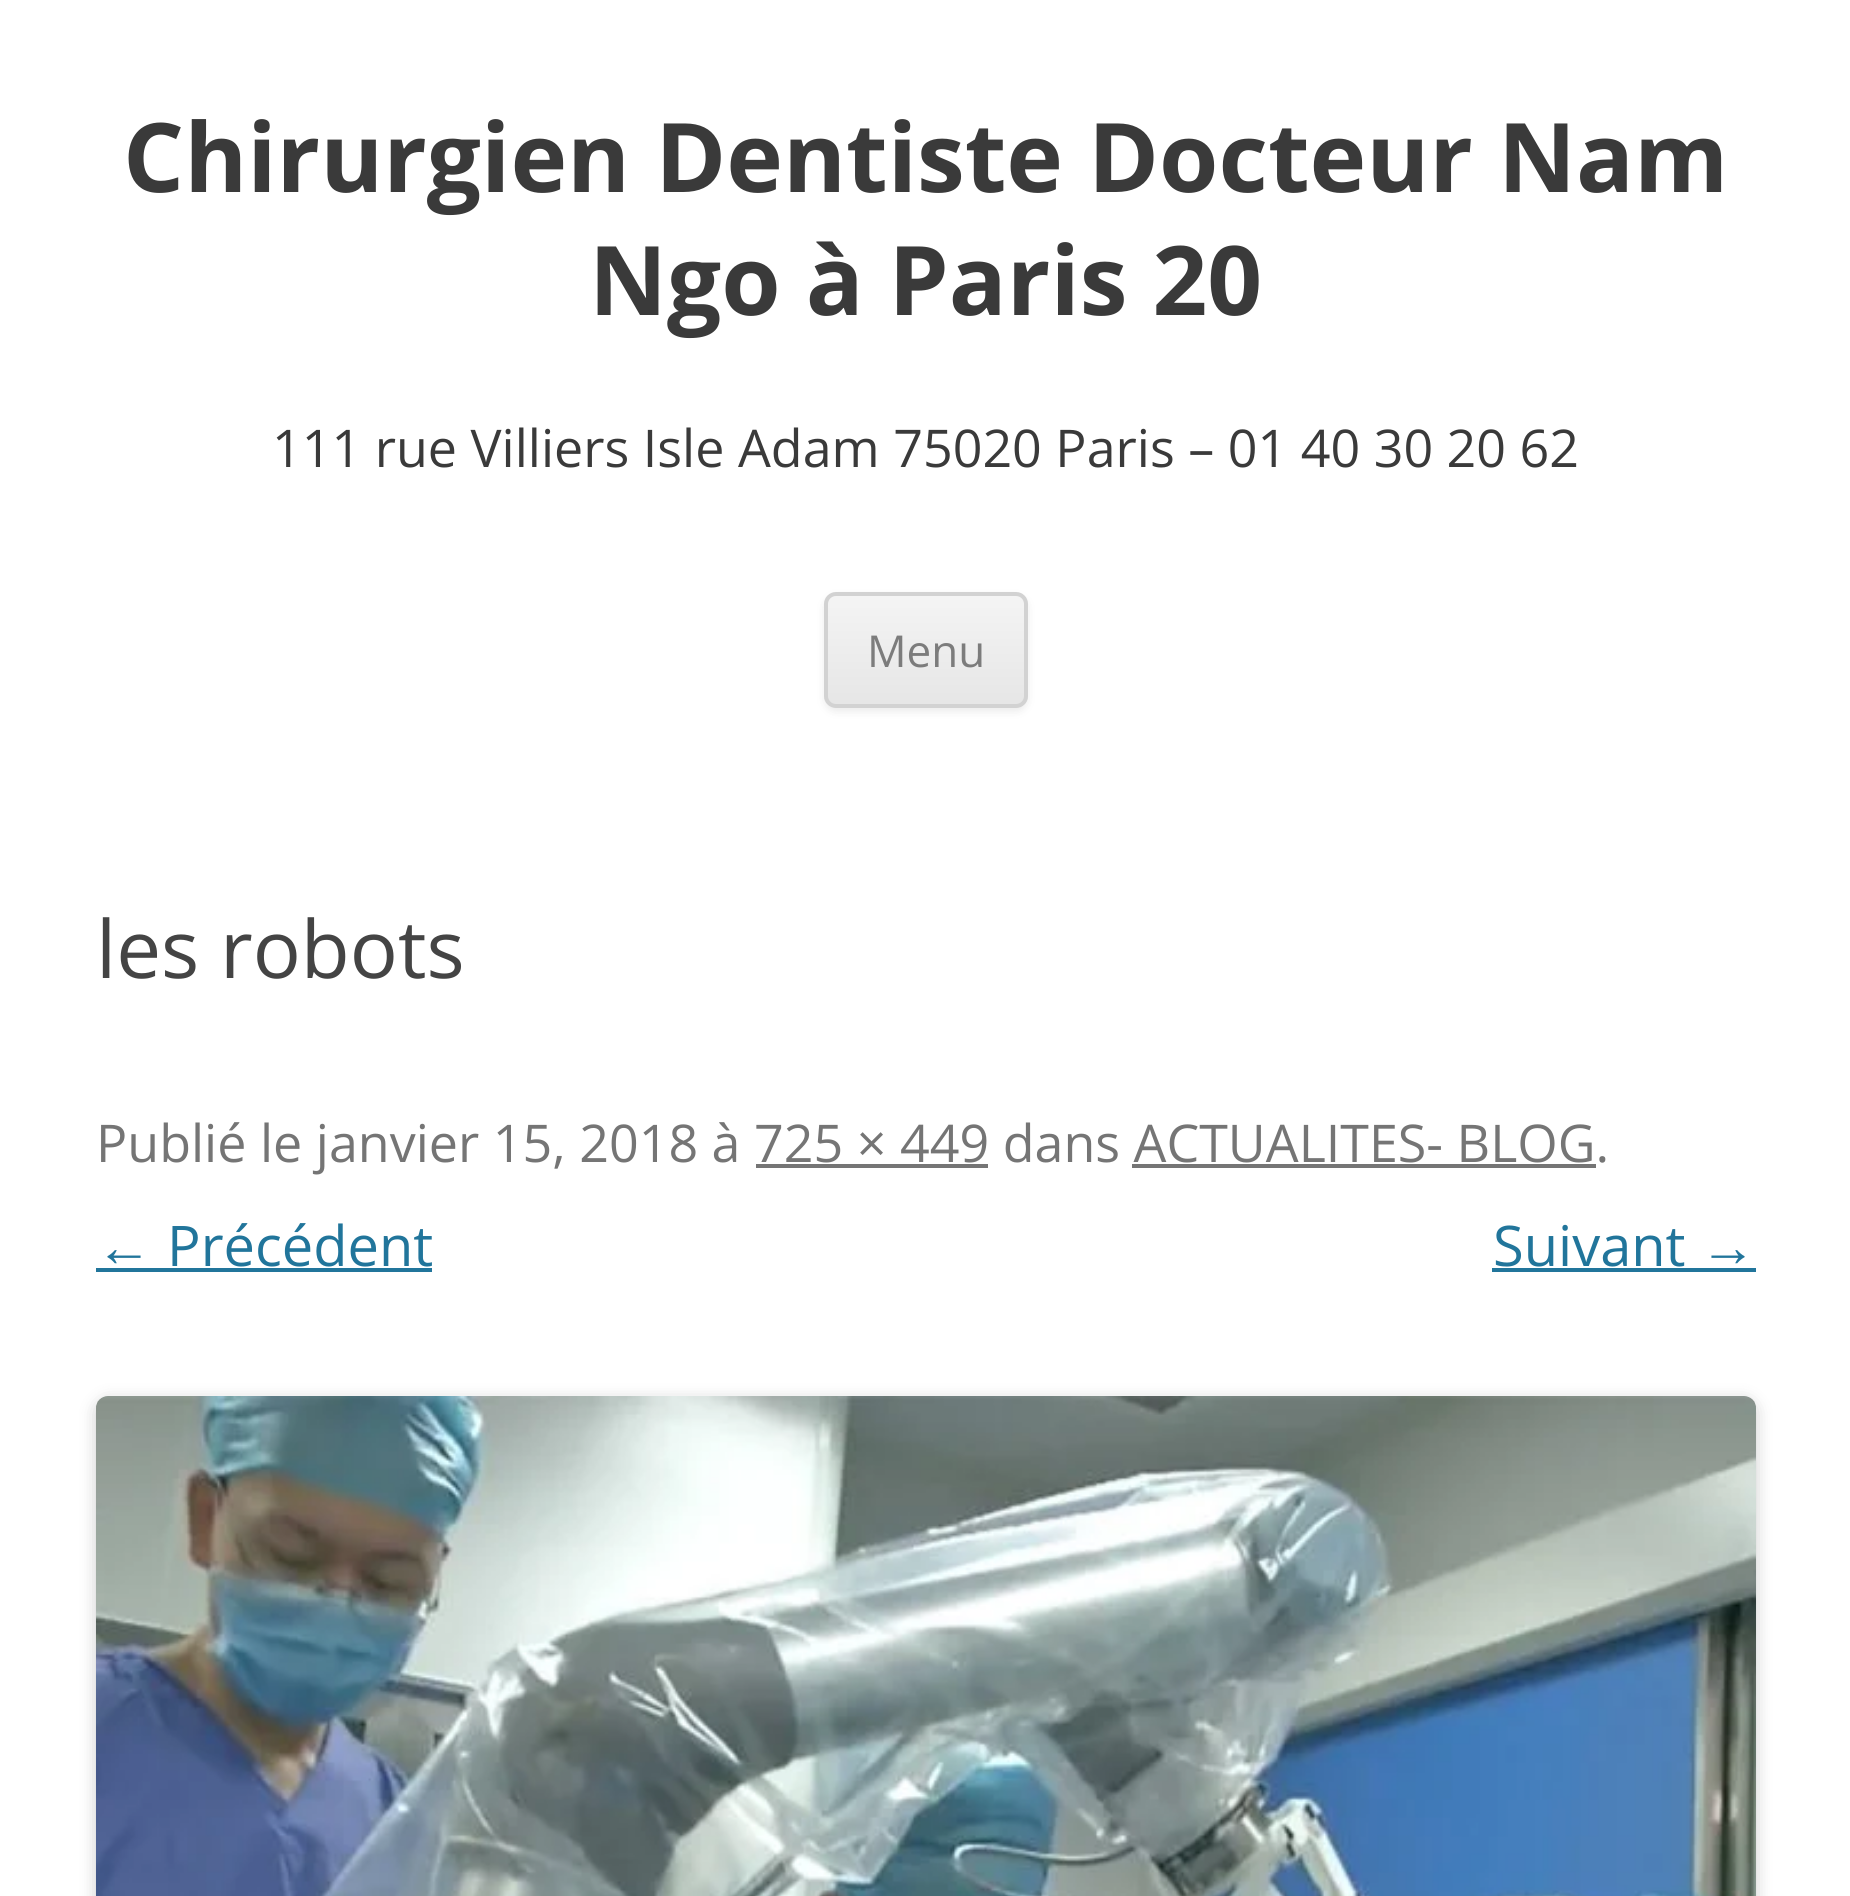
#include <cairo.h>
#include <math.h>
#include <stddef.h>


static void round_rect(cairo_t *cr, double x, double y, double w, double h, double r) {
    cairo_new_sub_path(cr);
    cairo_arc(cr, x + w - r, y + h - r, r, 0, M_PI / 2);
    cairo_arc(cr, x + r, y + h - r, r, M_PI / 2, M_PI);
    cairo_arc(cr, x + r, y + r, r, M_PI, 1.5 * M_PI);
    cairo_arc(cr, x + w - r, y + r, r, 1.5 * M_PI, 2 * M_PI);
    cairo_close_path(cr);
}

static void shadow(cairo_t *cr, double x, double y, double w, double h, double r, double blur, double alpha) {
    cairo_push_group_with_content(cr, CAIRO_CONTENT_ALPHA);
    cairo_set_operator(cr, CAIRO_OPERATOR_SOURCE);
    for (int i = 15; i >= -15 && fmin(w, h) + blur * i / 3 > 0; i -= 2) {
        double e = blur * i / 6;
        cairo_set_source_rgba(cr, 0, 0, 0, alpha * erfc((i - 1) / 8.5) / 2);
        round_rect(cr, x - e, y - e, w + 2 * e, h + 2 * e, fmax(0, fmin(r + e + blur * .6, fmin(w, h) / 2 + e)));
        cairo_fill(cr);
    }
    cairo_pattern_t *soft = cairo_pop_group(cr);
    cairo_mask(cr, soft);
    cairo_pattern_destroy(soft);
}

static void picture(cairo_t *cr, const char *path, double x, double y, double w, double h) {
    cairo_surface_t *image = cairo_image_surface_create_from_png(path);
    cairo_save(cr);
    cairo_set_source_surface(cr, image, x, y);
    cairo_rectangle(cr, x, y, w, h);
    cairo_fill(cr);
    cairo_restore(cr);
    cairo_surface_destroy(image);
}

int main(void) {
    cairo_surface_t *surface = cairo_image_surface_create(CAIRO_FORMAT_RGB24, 1850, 1896);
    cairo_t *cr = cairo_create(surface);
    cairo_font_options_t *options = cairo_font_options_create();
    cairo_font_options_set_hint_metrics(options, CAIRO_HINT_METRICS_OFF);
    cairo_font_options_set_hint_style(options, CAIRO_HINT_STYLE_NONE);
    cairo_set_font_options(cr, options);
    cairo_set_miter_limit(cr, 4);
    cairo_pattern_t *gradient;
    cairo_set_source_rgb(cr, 1, 1, 1);
    cairo_paint(cr);
    cairo_select_font_face(cr, "Open Sans", CAIRO_FONT_SLANT_NORMAL, CAIRO_FONT_WEIGHT_BOLD);
    cairo_set_font_size(cr, 96);
    cairo_set_source_rgb(cr, 0.227, 0.227, 0.227);
    cairo_move_to(cr, 123, 192);
    cairo_show_text(cr, "Chirurgien Dentiste Docteur Nam");
    cairo_move_to(cr, 589, 315);
    cairo_show_text(cr, "Ngo à Paris 20");
    cairo_select_font_face(cr, "Open Sans", CAIRO_FONT_SLANT_NORMAL, CAIRO_FONT_WEIGHT_NORMAL);
    cairo_set_font_size(cr, 52);
    cairo_move_to(cr, 272, 467);
    cairo_show_text(cr, "111 rue Villiers Isle Adam 75020 Paris – 01 40 30 20 62");
    cairo_set_source_rgb(cr, 0.251, 0.251, 0.251);
    shadow(cr, 824, 596, 204, 116, 12, 4, 0.1);
    cairo_save(cr);
    round_rect(cr, 824, 592, 204, 116, 12);
    cairo_clip(cr);
    gradient = cairo_pattern_create_linear(926, 596, 926, 704);
    cairo_pattern_add_color_stop_rgba(gradient, 0, 0.957, 0.957, 0.957, 1);
    cairo_pattern_add_color_stop_rgba(gradient, 1, 0.902, 0.902, 0.902, 1);
    cairo_set_source(cr, gradient);
    cairo_pattern_destroy(gradient);
    cairo_rectangle(cr, 824, 596, 204, 108);
    cairo_fill(cr);
    cairo_restore(cr);
    round_rect(cr, 826, 594, 200, 112, 10);
    cairo_set_source_rgb(cr, 0.824, 0.824, 0.824);
    cairo_set_line_width(cr, 4);
    cairo_stroke(cr);
    cairo_set_font_size(cr, 44);
    cairo_set_source_rgb(cr, 0.486, 0.486, 0.486);
    cairo_move_to(cr, 867, 667);
    cairo_show_text(cr, "Menu");
    cairo_set_font_size(cr, 80);
    cairo_set_source_rgb(cr, 0.267, 0.267, 0.267);
    cairo_move_to(cr, 96, 978);
    cairo_show_text(cr, "les robots");
    cairo_set_font_size(cr, 52);
    cairo_set_source_rgb(cr, 0.459, 0.459, 0.459);
    cairo_move_to(cr, 96, 1162);
    cairo_show_text(cr, "Publié le janvier 15, 2018 à 725 × 449 dans ACTUALITES- BLOG.");
    cairo_rectangle(cr, 756, 1164, 232, 4);
    cairo_fill(cr);
    cairo_rectangle(cr, 1132, 1164, 464, 4);
    cairo_fill(cr);
    cairo_select_font_face(cr, "Liberation Sans", CAIRO_FONT_SLANT_NORMAL, CAIRO_FONT_WEIGHT_NORMAL);
    cairo_set_font_size(cr, 56);
    cairo_set_source_rgb(cr, 0.129, 0.459, 0.608);
    cairo_move_to(cr, 96, 1266);
    cairo_show_text(cr, "←");
    cairo_rectangle(cr, 96, 1268, 336, 4);
    cairo_fill(cr);
    cairo_select_font_face(cr, "Open Sans", CAIRO_FONT_SLANT_NORMAL, CAIRO_FONT_WEIGHT_NORMAL);
    cairo_move_to(cr, 167, 1266);
    cairo_show_text(cr, "Précédent");
    cairo_move_to(cr, 1493, 1266);
    cairo_show_text(cr, "Suivant");
    cairo_select_font_face(cr, "Liberation Sans", CAIRO_FONT_SLANT_NORMAL, CAIRO_FONT_WEIGHT_NORMAL);
    cairo_move_to(cr, 1700, 1266);
    cairo_show_text(cr, "→");
    cairo_rectangle(cr, 1492, 1268, 264, 4);
    cairo_fill(cr);
    cairo_set_source_rgb(cr, 0, 0, 0);
    shadow(cr, 96, 1400, 1660, 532, 12, 8, 0.2);
    picture(cr, "img1.png", 96, 1396, 1660, 500);
    cairo_surface_write_to_png(surface, "page.png");
    cairo_font_options_destroy(options);
    cairo_destroy(cr);
    cairo_surface_destroy(surface);
    return 0;
}
